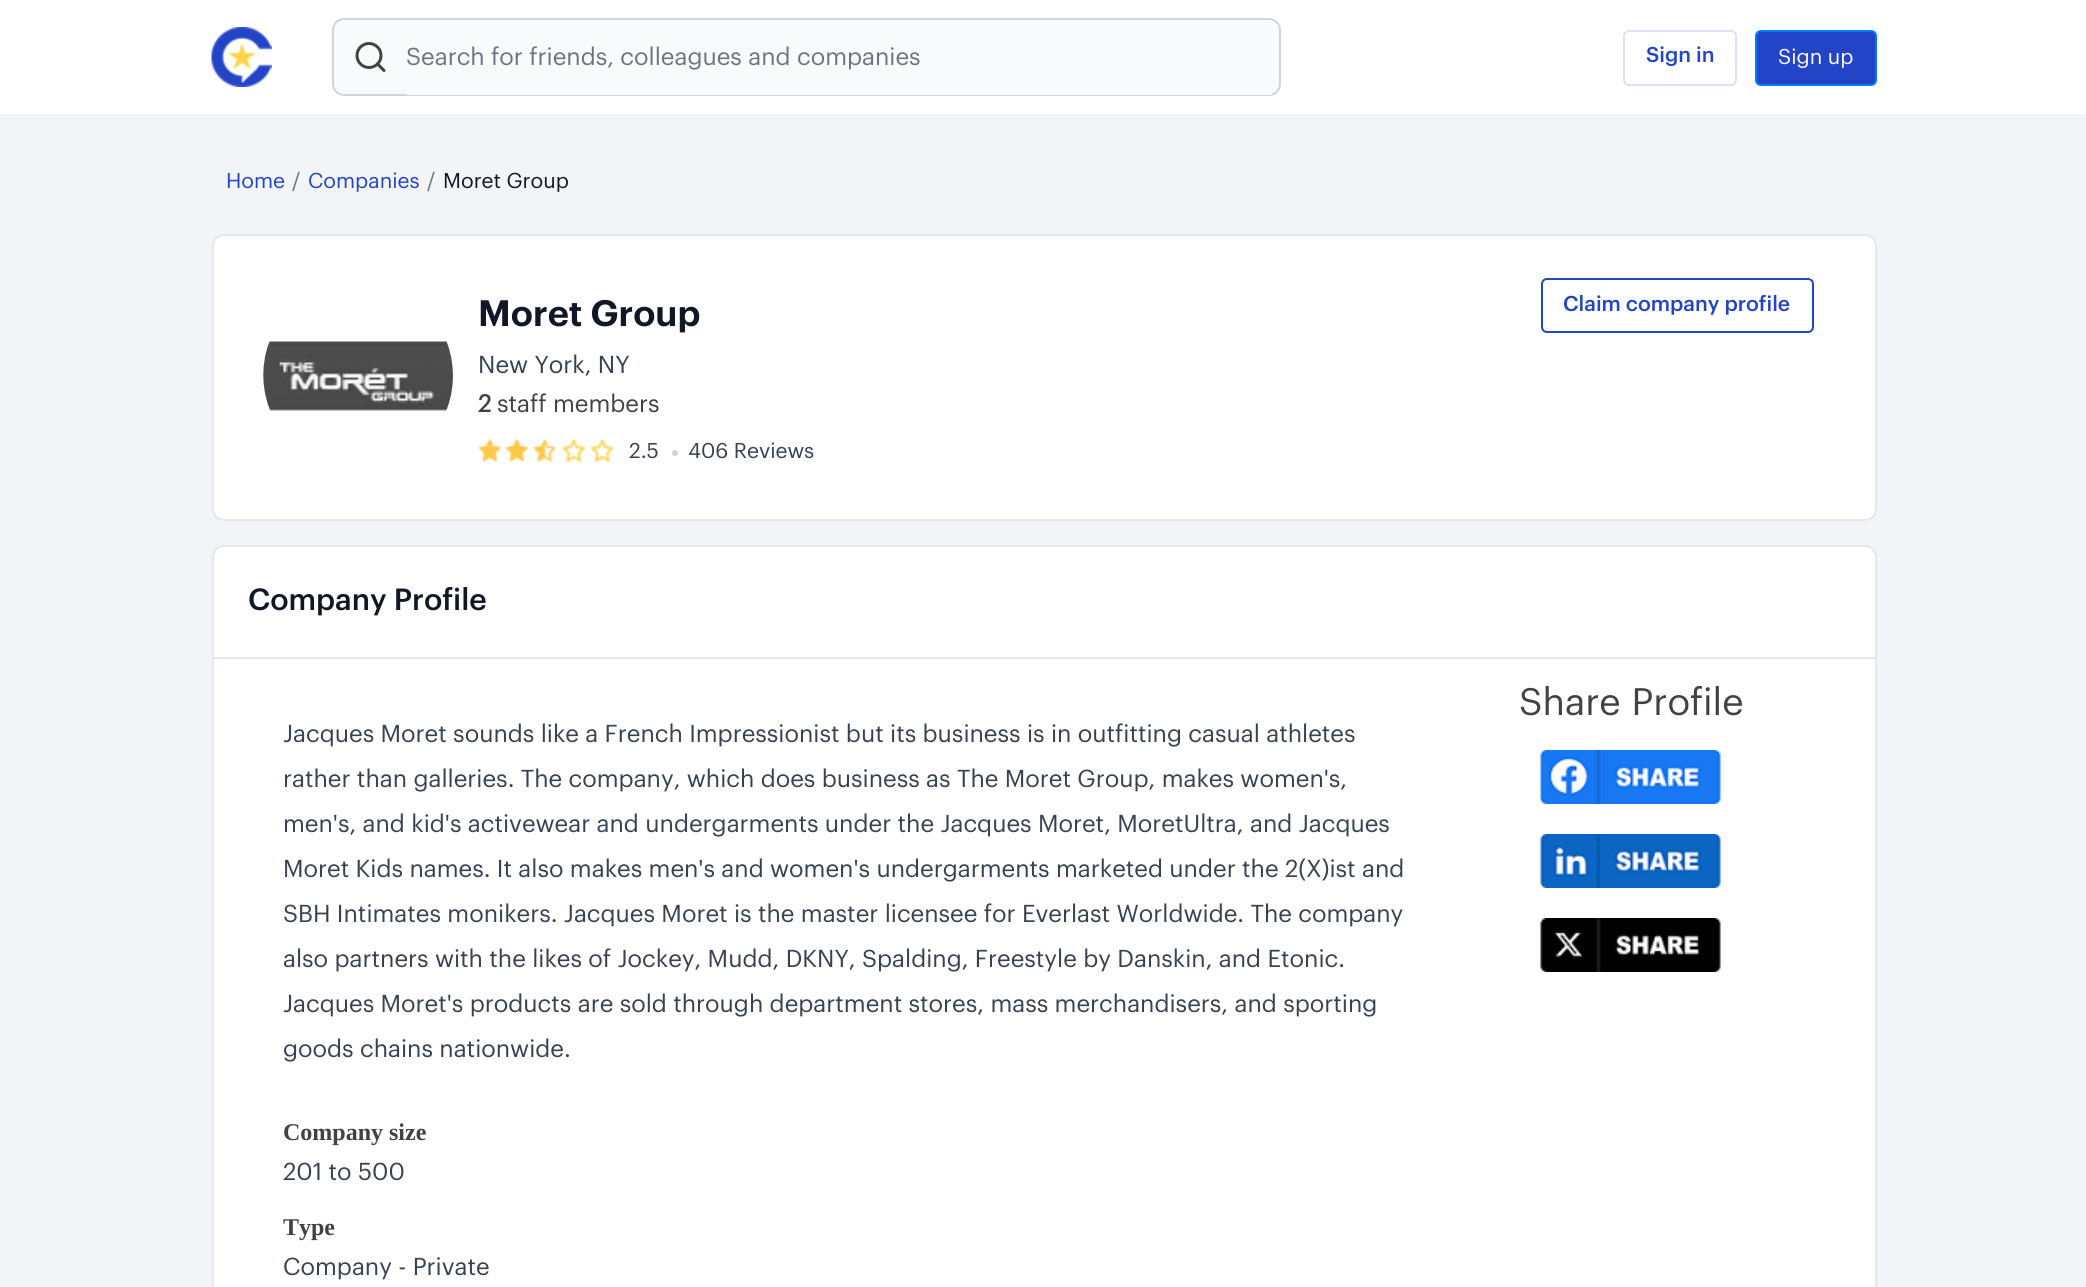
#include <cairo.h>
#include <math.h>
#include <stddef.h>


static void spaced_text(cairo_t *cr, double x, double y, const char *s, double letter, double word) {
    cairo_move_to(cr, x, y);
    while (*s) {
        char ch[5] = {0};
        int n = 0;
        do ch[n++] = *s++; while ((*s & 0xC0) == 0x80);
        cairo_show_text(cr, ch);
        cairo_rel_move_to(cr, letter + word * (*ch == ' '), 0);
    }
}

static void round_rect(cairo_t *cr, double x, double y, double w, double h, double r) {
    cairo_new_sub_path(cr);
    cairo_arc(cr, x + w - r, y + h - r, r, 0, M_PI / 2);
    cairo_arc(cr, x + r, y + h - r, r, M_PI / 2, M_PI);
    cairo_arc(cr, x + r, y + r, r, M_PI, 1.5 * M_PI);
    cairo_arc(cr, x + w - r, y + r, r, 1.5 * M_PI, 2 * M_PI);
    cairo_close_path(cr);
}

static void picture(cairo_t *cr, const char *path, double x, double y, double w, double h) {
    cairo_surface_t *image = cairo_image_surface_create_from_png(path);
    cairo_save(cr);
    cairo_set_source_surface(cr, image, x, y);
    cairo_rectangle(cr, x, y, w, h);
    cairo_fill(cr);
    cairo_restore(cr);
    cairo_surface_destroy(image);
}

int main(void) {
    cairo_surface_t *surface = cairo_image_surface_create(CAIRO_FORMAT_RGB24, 2086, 1287);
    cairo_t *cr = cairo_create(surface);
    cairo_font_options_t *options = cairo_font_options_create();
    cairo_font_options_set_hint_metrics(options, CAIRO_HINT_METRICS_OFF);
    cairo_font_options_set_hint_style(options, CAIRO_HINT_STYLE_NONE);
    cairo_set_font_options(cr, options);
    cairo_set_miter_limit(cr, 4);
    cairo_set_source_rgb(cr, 0.953, 0.957, 0.965);
    cairo_paint(cr);
    cairo_set_source_rgb(cr, 1, 1, 1);
    cairo_rectangle(cr, 0, 0, 2086, 114);
    cairo_fill(cr);
    picture(cr, "img1.png", 211, 27, 61, 60);
    cairo_set_source_rgb(cr, 0.976, 0.98, 0.984);
    round_rect(cr, 333, 19, 947, 76, 11);
    cairo_fill_preserve(cr);
    cairo_set_source_rgb(cr, 0.82, 0.835, 0.859);
    cairo_stroke(cr);
    cairo_arc(cr, 369, 55.5, 12, 0, 2 * M_PI);
    cairo_set_source_rgb(cr, 0.259, 0.259, 0.259);
    cairo_set_line_width(cr, 3);
    cairo_stroke(cr);
    cairo_new_path(cr);
    cairo_move_to(cr, 384, 70.5);
    cairo_line_to(cr, 377.5, 64);
    cairo_set_line_cap(cr, CAIRO_LINE_CAP_ROUND);
    cairo_set_line_join(cr, CAIRO_LINE_JOIN_ROUND);
    cairo_stroke(cr);
    cairo_set_source_rgb(cr, 0.976, 0.98, 0.984);
    cairo_rectangle(cr, 407, 20, 865, 75);
    cairo_fill(cr);
    cairo_select_font_face(cr, "Graphik", CAIRO_FONT_SLANT_NORMAL, CAIRO_FONT_WEIGHT_NORMAL);
    cairo_set_font_size(cr, 24);
    cairo_set_source_rgb(cr, 0.424, 0.459, 0.49);
    cairo_move_to(cr, 406, 65);
    cairo_show_text(cr, "Search for friends, colleagues and companies");
    round_rect(cr, 1624, 31, 112, 54, 5);
    cairo_set_source_rgb(cr, 0.863, 0.886, 0.976);
    cairo_set_line_width(cr, 2);
    cairo_set_line_cap(cr, CAIRO_LINE_CAP_BUTT);
    cairo_set_line_join(cr, CAIRO_LINE_JOIN_MITER);
    cairo_stroke(cr);
    cairo_select_font_face(cr, "Graphik Medium", CAIRO_FONT_SLANT_NORMAL, CAIRO_FONT_WEIGHT_NORMAL);
    cairo_set_font_size(cr, 21);
    cairo_set_source_rgb(cr, 0.137, 0.267, 0.78);
    cairo_move_to(cr, 1646, 62);
    cairo_show_text(cr, "Sign in");
    round_rect(cr, 1756, 31, 120, 54, 5);
    cairo_fill_preserve(cr);
    cairo_set_source_rgb(cr, 0, 0.482, 1);
    cairo_stroke(cr);
    cairo_select_font_face(cr, "Graphik", CAIRO_FONT_SLANT_NORMAL, CAIRO_FONT_WEIGHT_NORMAL);
    cairo_set_source_rgb(cr, 1, 1, 1);
    cairo_move_to(cr, 1778, 64);
    cairo_show_text(cr, "Sign up");
    cairo_set_source_rgb(cr, 0.137, 0.267, 0.78);
    cairo_move_to(cr, 226, 188);
    cairo_show_text(cr, "Home");
    cairo_set_source_rgb(cr, 0.424, 0.459, 0.49);
    cairo_move_to(cr, 292, 188);
    cairo_show_text(cr, "/");
    cairo_set_source_rgb(cr, 0.137, 0.267, 0.78);
    cairo_move_to(cr, 308, 188);
    cairo_show_text(cr, "Companies");
    cairo_set_source_rgb(cr, 0.424, 0.459, 0.49);
    cairo_move_to(cr, 427, 188);
    cairo_show_text(cr, "/");
    cairo_set_source_rgb(cr, 0.063, 0.094, 0.157);
    cairo_move_to(cr, 443, 188);
    cairo_show_text(cr, "Moret Group");
    cairo_set_source_rgb(cr, 1, 1, 1);
    round_rect(cr, 213, 235, 1663, 285, 11);
    cairo_fill_preserve(cr);
    cairo_set_source_rgb(cr, 0.898, 0.906, 0.922);
    cairo_stroke(cr);
    picture(cr, "img2.png", 263, 341, 190, 70);
    cairo_select_font_face(cr, "Graphik SemiBold", CAIRO_FONT_SLANT_NORMAL, CAIRO_FONT_WEIGHT_NORMAL);
    cairo_set_font_size(cr, 36);
    cairo_set_source_rgb(cr, 0.063, 0.094, 0.157);
    cairo_move_to(cr, 478, 326);
    cairo_show_text(cr, "Moret Group");
    cairo_select_font_face(cr, "Graphik", CAIRO_FONT_SLANT_NORMAL, CAIRO_FONT_WEIGHT_NORMAL);
    cairo_set_font_size(cr, 24);
    cairo_set_source_rgb(cr, 0.216, 0.255, 0.318);
    cairo_move_to(cr, 478, 373);
    cairo_show_text(cr, "New York, NY");
    cairo_select_font_face(cr, "Graphik", CAIRO_FONT_SLANT_NORMAL, CAIRO_FONT_WEIGHT_BOLD);
    cairo_set_source_rgb(cr, 0.259, 0.259, 0.259);
    cairo_move_to(cr, 478, 412);
    cairo_show_text(cr, "2");
    cairo_select_font_face(cr, "Graphik", CAIRO_FONT_SLANT_NORMAL, CAIRO_FONT_WEIGHT_NORMAL);
    cairo_move_to(cr, 497, 412);
    cairo_show_text(cr, "staff members");
    picture(cr, "img3.png", 478, 439, 23, 23);
    picture(cr, "img3.png", 505, 439, 23, 23);
    picture(cr, "img4.png", 534, 439, 23, 23);
    picture(cr, "img5.png", 562, 439, 23, 23);
    picture(cr, "img6.png", 591, 439, 23, 23);
    cairo_set_font_size(cr, 21);
    cairo_set_source_rgb(cr, 0.216, 0.255, 0.318);
    cairo_move_to(cr, 629, 458);
    cairo_show_text(cr, "2.5");
    cairo_set_source_rgb(cr, 0.82, 0.835, 0.859);
    cairo_new_path(cr);
    cairo_arc(cr, 675, 453, 3, 0, 2 * M_PI);
    cairo_fill(cr);
    cairo_set_source_rgb(cr, 0.216, 0.255, 0.318);
    cairo_move_to(cr, 688, 458);
    cairo_show_text(cr, "406 Reviews");
    round_rect(cr, 1542, 279, 271, 53, 5);
    cairo_set_source_rgb(cr, 0.137, 0.267, 0.78);
    cairo_stroke(cr);
    cairo_select_font_face(cr, "Graphik Medium", CAIRO_FONT_SLANT_NORMAL, CAIRO_FONT_WEIGHT_NORMAL);
    cairo_move_to(cr, 1563, 311);
    cairo_show_text(cr, "Claim company profile");
    cairo_set_source_rgb(cr, 1, 1, 1);
    round_rect(cr, 213, 546, 1663, 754, 11);
    cairo_fill_preserve(cr);
    cairo_set_source_rgb(cr, 0.898, 0.906, 0.922);
    cairo_stroke(cr);
    cairo_rectangle(cr, 213, 657, 1662, 2);
    cairo_fill(cr);
    cairo_set_font_size(cr, 30);
    cairo_set_source_rgb(cr, 0.063, 0.094, 0.157);
    cairo_move_to(cr, 248, 610);
    cairo_show_text(cr, "Company Profile");
    cairo_select_font_face(cr, "Graphik", CAIRO_FONT_SLANT_NORMAL, CAIRO_FONT_WEIGHT_NORMAL);
    cairo_set_font_size(cr, 37.5);
    cairo_set_source_rgb(cr, 0.259, 0.259, 0.259);
    spaced_text(cr, 1519, 715, "Share Profile", 0, 1);
    picture(cr, "img7.png", 1540, 750, 181, 54);
    picture(cr, "img8.png", 1540, 834, 181, 54);
    picture(cr, "img9.png", 1540, 918, 181, 54);
    cairo_set_font_size(cr, 24);
    cairo_set_source_rgb(cr, 0.216, 0.255, 0.318);
    cairo_move_to(cr, 283, 742);
    cairo_show_text(cr, "Jacques Moret sounds like a French Impressionist but its business is in outfitting casual athletes");
    cairo_move_to(cr, 283, 787);
    cairo_show_text(cr, "rather than galleries. The company, which does business as The Moret Group, makes women's,");
    cairo_move_to(cr, 283, 832);
    cairo_show_text(cr, "men's, and kid's activewear and undergarments under the Jacques Moret, MoretUltra, and Jacques");
    cairo_move_to(cr, 283, 877);
    cairo_show_text(cr, "Moret Kids names. It also makes men's and women's undergarments marketed under the 2(X)ist and");
    cairo_move_to(cr, 283, 922);
    cairo_show_text(cr, "SBH Intimates monikers. Jacques Moret is the master licensee for Everlast Worldwide. The company");
    cairo_move_to(cr, 283, 967);
    cairo_show_text(cr, "also partners with the likes of Jockey, Mudd, DKNY, Spalding, Freestyle by Danskin, and Etonic.");
    cairo_move_to(cr, 283, 1012);
    cairo_show_text(cr, "Jacques Moret's products are sold through department stores, mass merchandisers, and sporting");
    cairo_move_to(cr, 283, 1057);
    cairo_show_text(cr, "goods chains nationwide.");
    cairo_select_font_face(cr, "Liberation Serif", CAIRO_FONT_SLANT_NORMAL, CAIRO_FONT_WEIGHT_BOLD);
    cairo_set_source_rgb(cr, 0.259, 0.259, 0.259);
    cairo_move_to(cr, 283, 1140);
    cairo_show_text(cr, "Company size");
    cairo_select_font_face(cr, "Graphik", CAIRO_FONT_SLANT_NORMAL, CAIRO_FONT_WEIGHT_NORMAL);
    cairo_set_source_rgb(cr, 0.216, 0.255, 0.318);
    cairo_move_to(cr, 283, 1180);
    cairo_show_text(cr, "201 to 500");
    cairo_select_font_face(cr, "Liberation Serif", CAIRO_FONT_SLANT_NORMAL, CAIRO_FONT_WEIGHT_BOLD);
    cairo_set_source_rgb(cr, 0.259, 0.259, 0.259);
    cairo_move_to(cr, 283, 1235);
    cairo_show_text(cr, "Type");
    cairo_select_font_face(cr, "Graphik", CAIRO_FONT_SLANT_NORMAL, CAIRO_FONT_WEIGHT_NORMAL);
    cairo_set_source_rgb(cr, 0.216, 0.255, 0.318);
    cairo_move_to(cr, 283, 1275);
    cairo_show_text(cr, "Company - Private");
    cairo_surface_write_to_png(surface, "page.png");
    cairo_font_options_destroy(options);
    cairo_destroy(cr);
    cairo_surface_destroy(surface);
    return 0;
}
